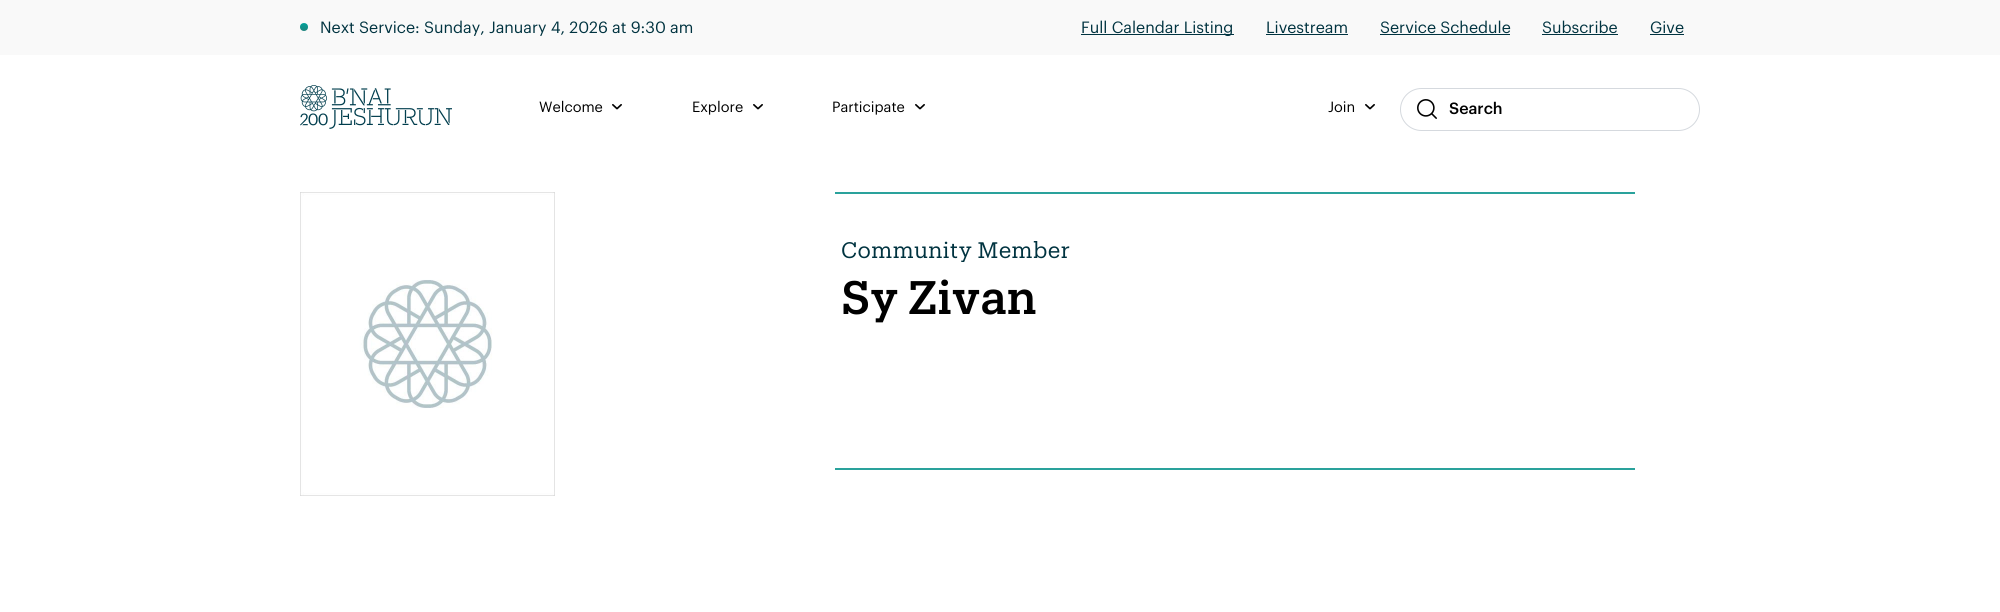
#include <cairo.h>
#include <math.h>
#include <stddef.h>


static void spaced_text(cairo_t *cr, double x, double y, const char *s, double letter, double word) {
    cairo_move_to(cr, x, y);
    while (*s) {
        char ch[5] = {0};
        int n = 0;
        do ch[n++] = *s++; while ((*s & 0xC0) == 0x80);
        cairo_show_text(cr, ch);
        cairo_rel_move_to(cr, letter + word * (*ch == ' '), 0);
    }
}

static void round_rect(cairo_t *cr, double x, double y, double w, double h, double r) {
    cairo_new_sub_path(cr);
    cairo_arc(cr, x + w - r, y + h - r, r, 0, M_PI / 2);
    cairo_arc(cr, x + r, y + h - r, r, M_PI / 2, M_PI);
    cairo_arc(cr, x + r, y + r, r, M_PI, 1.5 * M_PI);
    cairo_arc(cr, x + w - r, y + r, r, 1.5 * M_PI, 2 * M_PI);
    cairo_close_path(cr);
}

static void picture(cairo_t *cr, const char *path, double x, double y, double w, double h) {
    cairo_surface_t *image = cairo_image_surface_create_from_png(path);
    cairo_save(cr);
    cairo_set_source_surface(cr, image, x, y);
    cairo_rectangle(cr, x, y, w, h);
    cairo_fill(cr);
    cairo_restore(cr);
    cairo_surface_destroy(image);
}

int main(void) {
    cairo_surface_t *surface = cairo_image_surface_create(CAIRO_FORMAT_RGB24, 2000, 612);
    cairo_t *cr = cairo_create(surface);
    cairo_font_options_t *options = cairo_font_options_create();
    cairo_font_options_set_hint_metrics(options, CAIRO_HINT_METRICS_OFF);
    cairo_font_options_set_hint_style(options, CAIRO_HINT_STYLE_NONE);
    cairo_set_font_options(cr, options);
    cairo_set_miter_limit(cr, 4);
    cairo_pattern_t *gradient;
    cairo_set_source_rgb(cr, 1, 1, 1);
    cairo_paint(cr);
    cairo_set_source_rgb(cr, 0.976, 0.976, 0.976);
    cairo_rectangle(cr, 0, 0, 2000, 55);
    cairo_fill(cr);
    gradient = cairo_pattern_create_linear(304, 23, 304, 31);
    cairo_pattern_add_color_stop_rgba(gradient, 0, 0, 0.635, 0.608, 1);
    cairo_pattern_add_color_stop_rgba(gradient, 1, 0.122, 0.514, 0.486, 1);
    cairo_set_source(cr, gradient);
    cairo_pattern_destroy(gradient);
    cairo_arc(cr, 304, 27, 4, 0, 2 * M_PI);
    cairo_fill(cr);
    cairo_select_font_face(cr, "Graphik", CAIRO_FONT_SLANT_NORMAL, CAIRO_FONT_WEIGHT_NORMAL);
    cairo_set_font_size(cr, 16);
    cairo_set_source_rgb(cr, 0, 0.2, 0.251);
    cairo_move_to(cr, 320, 33);
    cairo_show_text(cr, "Next Service: Sunday, January 4, 2026 at 9:30 am");
    cairo_rectangle(cr, 1081, 34, 153, 1);
    cairo_fill(cr);
    cairo_move_to(cr, 1081, 33);
    cairo_show_text(cr, "Full Calendar Listing");
    cairo_move_to(cr, 1266, 33);
    cairo_show_text(cr, "Livestream");
    cairo_rectangle(cr, 1266, 34, 82, 1);
    cairo_fill(cr);
    cairo_move_to(cr, 1380, 33);
    cairo_show_text(cr, "Service Schedule");
    cairo_rectangle(cr, 1380, 34, 130, 1);
    cairo_fill(cr);
    cairo_move_to(cr, 1542, 33);
    cairo_show_text(cr, "Subscribe");
    cairo_rectangle(cr, 1542, 34, 76, 1);
    cairo_fill(cr);
    cairo_move_to(cr, 1650, 33);
    cairo_show_text(cr, "Give");
    cairo_rectangle(cr, 1650, 34, 34, 1);
    cairo_fill(cr);
    picture(cr, "img1.png", 300, 85, 152, 44);
    cairo_set_font_size(cr, 14.5);
    cairo_set_source_rgb(cr, 0, 0, 0);
    cairo_move_to(cr, 539, 112);
    cairo_show_text(cr, "Welcome");
    picture(cr, "img2.png", 612, 104, 10, 6);
    cairo_move_to(cr, 692, 112);
    cairo_show_text(cr, "Explore");
    picture(cr, "img2.png", 753, 104, 10, 6);
    cairo_move_to(cr, 832, 112);
    cairo_show_text(cr, "Participate");
    picture(cr, "img2.png", 915, 104, 10, 6);
    cairo_move_to(cr, 1328, 112);
    cairo_show_text(cr, "Join");
    picture(cr, "img2.png", 1365, 104, 10, 6);
    picture(cr, "img3.png", 1417, 99, 20, 20);
    round_rect(cr, 1400.5, 88.5, 299, 42, 21);
    cairo_set_source_rgb(cr, 0.835, 0.851, 0.871);
    cairo_set_line_width(cr, 1);
    cairo_stroke(cr);
    cairo_select_font_face(cr, "Graphik Medium", CAIRO_FONT_SLANT_NORMAL, CAIRO_FONT_WEIGHT_NORMAL);
    cairo_set_font_size(cr, 16);
    cairo_set_source_rgb(cr, 0, 0, 0);
    cairo_move_to(cr, 1449, 114);
    cairo_show_text(cr, "Search");
    picture(cr, "img4.png", 300, 192, 255, 304);
    cairo_set_source_rgb(cr, 0.165, 0.635, 0.612);
    cairo_rectangle(cr, 835, 192, 800, 2);
    cairo_fill(cr);
    cairo_rectangle(cr, 835, 468, 800, 2);
    cairo_fill(cr);
    cairo_select_font_face(cr, "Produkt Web", CAIRO_FONT_SLANT_NORMAL, CAIRO_FONT_WEIGHT_NORMAL);
    cairo_set_font_size(cr, 22);
    cairo_set_source_rgb(cr, 0, 0.2, 0.251);
    spaced_text(cr, 841, 258, "Community Member", 0.4, 0);
    cairo_select_font_face(cr, "Produkt Web Medium", CAIRO_FONT_SLANT_NORMAL, CAIRO_FONT_WEIGHT_NORMAL);
    cairo_set_font_size(cr, 46);
    cairo_set_source_rgb(cr, 0, 0, 0);
    cairo_move_to(cr, 841, 314);
    cairo_show_text(cr, "Sy Zivan");
    cairo_surface_write_to_png(surface, "page.png");
    cairo_font_options_destroy(options);
    cairo_destroy(cr);
    cairo_surface_destroy(surface);
    return 0;
}
